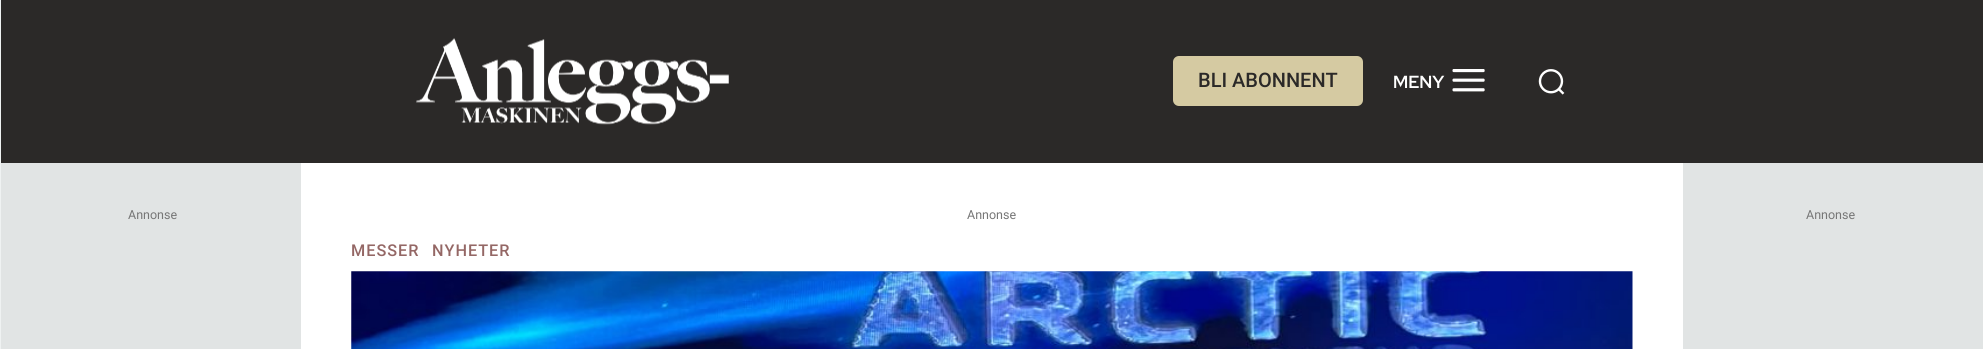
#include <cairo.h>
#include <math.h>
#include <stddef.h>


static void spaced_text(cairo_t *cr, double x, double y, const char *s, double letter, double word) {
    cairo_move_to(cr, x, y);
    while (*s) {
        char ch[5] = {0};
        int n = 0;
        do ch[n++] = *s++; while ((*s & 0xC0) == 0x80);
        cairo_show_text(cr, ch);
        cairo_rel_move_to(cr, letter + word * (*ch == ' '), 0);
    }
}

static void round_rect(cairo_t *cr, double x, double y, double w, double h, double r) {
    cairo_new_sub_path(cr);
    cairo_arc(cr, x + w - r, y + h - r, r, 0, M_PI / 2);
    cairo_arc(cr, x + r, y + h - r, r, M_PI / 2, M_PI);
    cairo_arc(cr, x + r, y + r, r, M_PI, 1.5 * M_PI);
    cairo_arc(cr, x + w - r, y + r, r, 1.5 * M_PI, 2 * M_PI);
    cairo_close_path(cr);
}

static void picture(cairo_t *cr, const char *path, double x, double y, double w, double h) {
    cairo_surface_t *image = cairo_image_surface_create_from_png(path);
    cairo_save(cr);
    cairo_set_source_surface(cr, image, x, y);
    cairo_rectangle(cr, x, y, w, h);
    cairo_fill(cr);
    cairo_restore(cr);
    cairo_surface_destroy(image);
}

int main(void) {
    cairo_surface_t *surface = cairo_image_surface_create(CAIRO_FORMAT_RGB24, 1983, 349);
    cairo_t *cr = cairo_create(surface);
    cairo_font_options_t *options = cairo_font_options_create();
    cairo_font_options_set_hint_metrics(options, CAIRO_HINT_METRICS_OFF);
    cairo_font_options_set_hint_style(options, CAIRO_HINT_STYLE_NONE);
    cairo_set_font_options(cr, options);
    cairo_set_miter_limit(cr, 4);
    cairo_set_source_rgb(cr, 0.937, 0.949, 0.949);
    cairo_paint(cr);
    cairo_set_source_rgb(cr, 0.169, 0.161, 0.157);
    cairo_rectangle(cr, 1, 0, 1982, 163);
    cairo_fill(cr);
    picture(cr, "img1.png", 416, 38, 313, 87);
    cairo_set_source_rgb(cr, 0.835, 0.792, 0.635);
    round_rect(cr, 1173, 56, 190, 50, 6);
    cairo_fill(cr);
    cairo_select_font_face(cr, "Roboto Medium", CAIRO_FONT_SLANT_NORMAL, CAIRO_FONT_WEIGHT_NORMAL);
    cairo_set_font_size(cr, 20);
    cairo_set_source_rgb(cr, 0.169, 0.161, 0.157);
    cairo_move_to(cr, 1198, 87);
    cairo_show_text(cr, "BLI ABONNENT");
    cairo_select_font_face(cr, "Red Hat Display", CAIRO_FONT_SLANT_NORMAL, CAIRO_FONT_WEIGHT_BOLD);
    cairo_set_font_size(cr, 17.5);
    cairo_set_source_rgb(cr, 1, 1, 1);
    cairo_move_to(cr, 1393, 88);
    cairo_show_text(cr, "MENY");
    picture(cr, "img2.png", 1452, 69, 33, 23);
    picture(cr, "img3.png", 1538, 69, 27, 26);
    cairo_set_source_rgb(cr, 0.882, 0.894, 0.894);
    cairo_rectangle(cr, 1, 163, 1982, 186);
    cairo_fill(cr);
    cairo_select_font_face(cr, "Roboto", CAIRO_FONT_SLANT_NORMAL, CAIRO_FONT_WEIGHT_NORMAL);
    cairo_set_font_size(cr, 12.5);
    cairo_set_source_rgb(cr, 0.463, 0.463, 0.463);
    cairo_move_to(cr, 128, 219);
    cairo_show_text(cr, "Annonse");
    cairo_set_source_rgb(cr, 1, 1, 1);
    cairo_rectangle(cr, 301, 163, 1382, 186);
    cairo_fill(cr);
    cairo_set_source_rgb(cr, 0.463, 0.463, 0.463);
    cairo_move_to(cr, 967, 219);
    cairo_show_text(cr, "Annonse");
    cairo_select_font_face(cr, "Roboto Medium", CAIRO_FONT_SLANT_NORMAL, CAIRO_FONT_WEIGHT_NORMAL);
    cairo_set_font_size(cr, 16.25);
    cairo_set_source_rgb(cr, 0.58, 0.404, 0.396);
    spaced_text(cr, 351, 256, "MESSER", 1, 0);
    spaced_text(cr, 432, 256, "NYHETER", 1, 0);
    picture(cr, "img4.png", 351, 271, 1282, 78);
    cairo_select_font_face(cr, "Roboto", CAIRO_FONT_SLANT_NORMAL, CAIRO_FONT_WEIGHT_NORMAL);
    cairo_set_font_size(cr, 12.5);
    cairo_set_source_rgb(cr, 0.463, 0.463, 0.463);
    cairo_move_to(cr, 1806, 219);
    cairo_show_text(cr, "Annonse");
    cairo_surface_write_to_png(surface, "page.png");
    cairo_font_options_destroy(options);
    cairo_destroy(cr);
    cairo_surface_destroy(surface);
    return 0;
}
